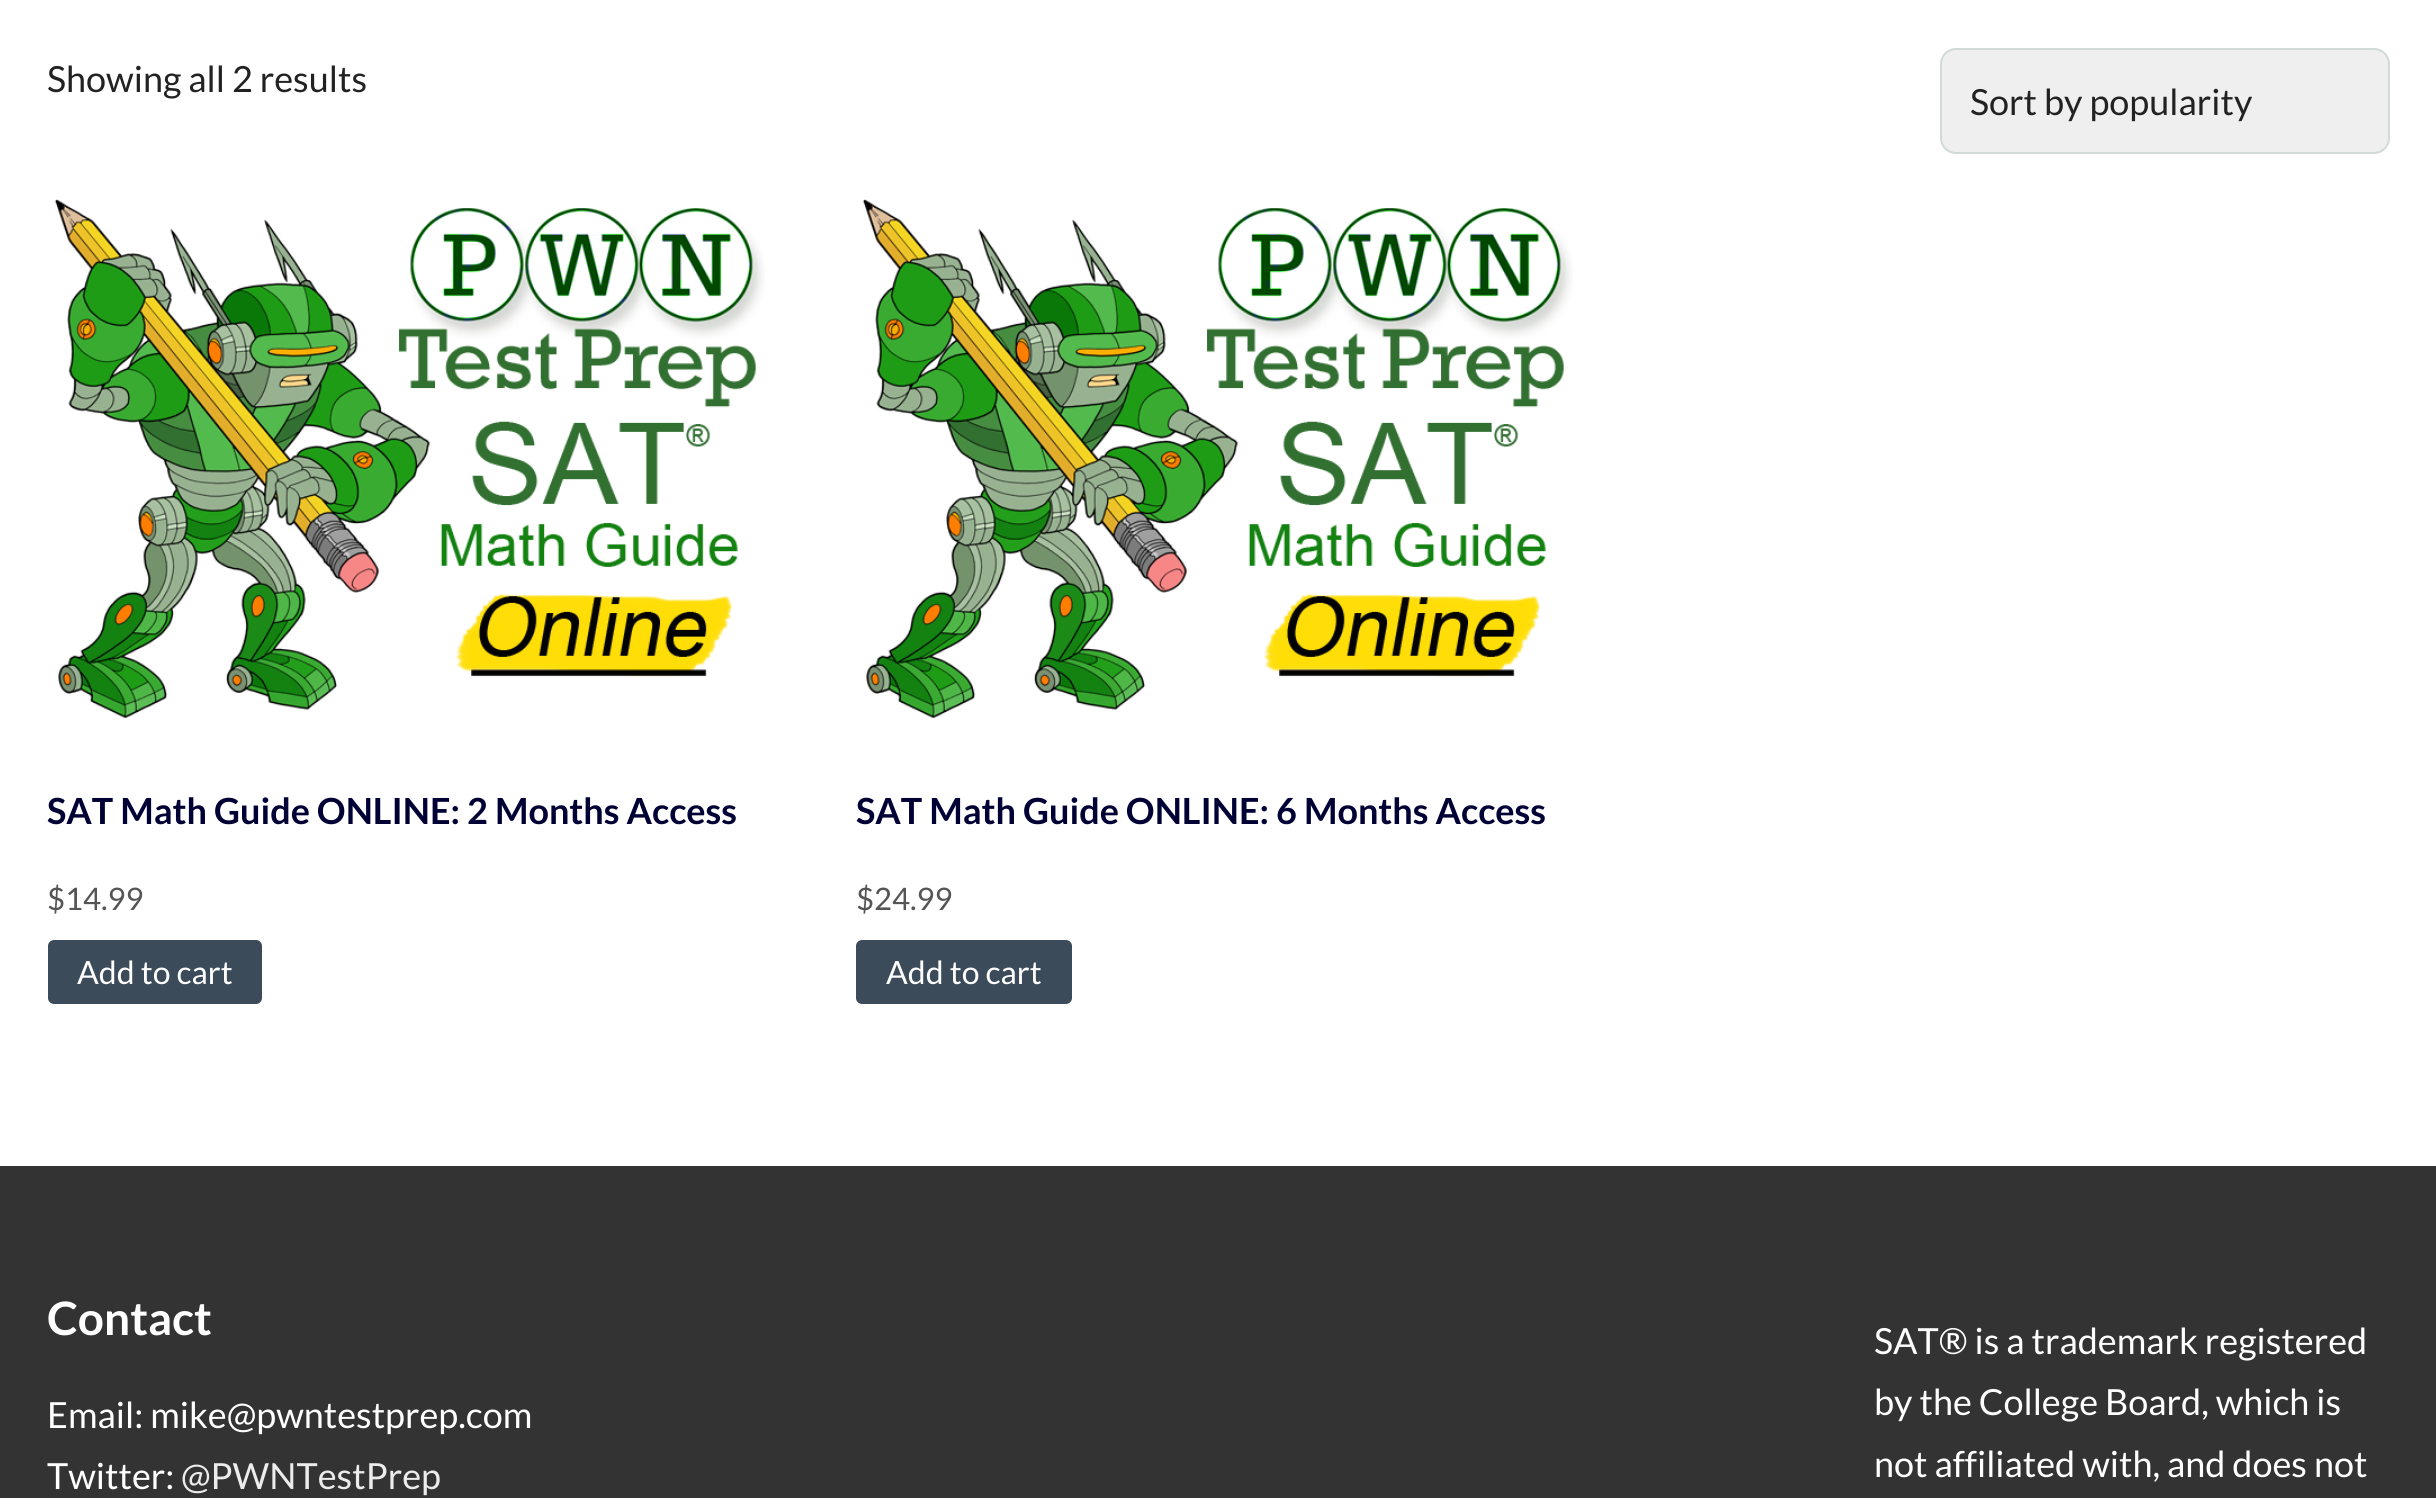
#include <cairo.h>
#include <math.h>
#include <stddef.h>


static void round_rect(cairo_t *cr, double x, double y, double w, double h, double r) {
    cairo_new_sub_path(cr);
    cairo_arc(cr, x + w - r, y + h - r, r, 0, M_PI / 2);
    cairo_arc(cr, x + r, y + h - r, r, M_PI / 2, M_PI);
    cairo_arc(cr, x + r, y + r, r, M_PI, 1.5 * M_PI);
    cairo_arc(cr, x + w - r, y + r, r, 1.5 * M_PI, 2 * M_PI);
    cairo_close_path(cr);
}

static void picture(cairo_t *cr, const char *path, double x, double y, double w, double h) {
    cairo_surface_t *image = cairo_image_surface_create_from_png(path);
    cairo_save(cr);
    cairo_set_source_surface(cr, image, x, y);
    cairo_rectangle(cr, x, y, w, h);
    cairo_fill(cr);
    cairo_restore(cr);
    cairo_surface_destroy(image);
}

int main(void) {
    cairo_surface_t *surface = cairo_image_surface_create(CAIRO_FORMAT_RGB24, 2436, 1498);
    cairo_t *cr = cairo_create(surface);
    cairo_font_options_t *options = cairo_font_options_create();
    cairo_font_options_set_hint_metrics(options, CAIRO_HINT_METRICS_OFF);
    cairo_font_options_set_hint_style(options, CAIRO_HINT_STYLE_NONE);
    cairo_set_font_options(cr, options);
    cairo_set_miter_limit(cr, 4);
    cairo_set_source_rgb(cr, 1, 1, 1);
    cairo_paint(cr);
    cairo_select_font_face(cr, "Lato", CAIRO_FONT_SLANT_NORMAL, CAIRO_FONT_WEIGHT_NORMAL);
    cairo_set_font_size(cr, 36);
    cairo_set_source_rgb(cr, 0.133, 0.133, 0.133);
    cairo_move_to(cr, 47, 92);
    cairo_show_text(cr, "Showing all 2 results");
    cairo_set_source_rgb(cr, 0.937, 0.937, 0.937);
    round_rect(cr, 1940, 48, 450, 106, 16);
    cairo_fill(cr);
    round_rect(cr, 1941, 49, 448, 104, 15);
    cairo_set_source_rgba(cr, 0.012, 0.329, 0.247, 0.13);
    cairo_stroke(cr);
    cairo_set_source_rgb(cr, 0.133, 0.133, 0.133);
    cairo_move_to(cr, 1970, 115);
    cairo_show_text(cr, "Sort by popularity");
    picture(cr, "img1.png", 54, 199, 711, 520);
    cairo_select_font_face(cr, "Lato", CAIRO_FONT_SLANT_NORMAL, CAIRO_FONT_WEIGHT_BOLD);
    cairo_set_source_rgb(cr, 0, 0, 0.208);
    cairo_move_to(cr, 47, 824);
    cairo_show_text(cr, "SAT Math Guide ONLINE: 2 Months Access");
    cairo_select_font_face(cr, "Lato", CAIRO_FONT_SLANT_NORMAL, CAIRO_FONT_WEIGHT_NORMAL);
    cairo_set_font_size(cr, 31);
    cairo_set_source_rgb(cr, 0.333, 0.333, 0.333);
    cairo_move_to(cr, 47, 910);
    cairo_show_text(cr, "$14.99");
    cairo_set_source_rgb(cr, 0.235, 0.294, 0.353);
    round_rect(cr, 48, 940, 214, 64, 6);
    cairo_fill(cr);
    cairo_set_font_size(cr, 32);
    cairo_set_source_rgb(cr, 1, 1, 1);
    cairo_move_to(cr, 77, 984);
    cairo_show_text(cr, "Add to cart");
    picture(cr, "img2.png", 862, 199, 711, 520);
    cairo_select_font_face(cr, "Lato", CAIRO_FONT_SLANT_NORMAL, CAIRO_FONT_WEIGHT_BOLD);
    cairo_set_font_size(cr, 36);
    cairo_set_source_rgb(cr, 0, 0, 0.208);
    cairo_move_to(cr, 856, 824);
    cairo_show_text(cr, "SAT Math Guide ONLINE: 6 Months Access");
    cairo_select_font_face(cr, "Lato", CAIRO_FONT_SLANT_NORMAL, CAIRO_FONT_WEIGHT_NORMAL);
    cairo_set_font_size(cr, 31);
    cairo_set_source_rgb(cr, 0.333, 0.333, 0.333);
    cairo_move_to(cr, 856, 910);
    cairo_show_text(cr, "$24.99");
    cairo_set_source_rgb(cr, 0.235, 0.294, 0.353);
    round_rect(cr, 856, 940, 216, 64, 6);
    cairo_fill(cr);
    cairo_set_font_size(cr, 32);
    cairo_set_source_rgb(cr, 1, 1, 1);
    cairo_move_to(cr, 886, 984);
    cairo_show_text(cr, "Add to cart");
    cairo_set_source_rgb(cr, 0.2, 0.2, 0.2);
    cairo_rectangle(cr, 0, 1166, 2436, 332);
    cairo_fill(cr);
    cairo_select_font_face(cr, "Lato", CAIRO_FONT_SLANT_NORMAL, CAIRO_FONT_WEIGHT_BOLD);
    cairo_set_font_size(cr, 46);
    cairo_set_source_rgb(cr, 1, 1, 1);
    cairo_move_to(cr, 47, 1335);
    cairo_show_text(cr, "Contact");
    cairo_select_font_face(cr, "Lato", CAIRO_FONT_SLANT_NORMAL, CAIRO_FONT_WEIGHT_NORMAL);
    cairo_set_font_size(cr, 36);
    cairo_move_to(cr, 47, 1428);
    cairo_show_text(cr, "Email: mike@pwntestprep.com");
    cairo_move_to(cr, 47, 1489);
    cairo_show_text(cr, "Twitter:");
    cairo_set_source_rgb(cr, 0.922, 0.922, 0.922);
    cairo_move_to(cr, 181, 1489);
    cairo_show_text(cr, "@PWNTestPrep");
    cairo_set_source_rgb(cr, 1, 1, 1);
    cairo_move_to(cr, 1874, 1354);
    cairo_show_text(cr, "SAT® is a trademark registered");
    cairo_move_to(cr, 1874, 1415);
    cairo_show_text(cr, "by the College Board, which is");
    cairo_move_to(cr, 1874, 1477);
    cairo_show_text(cr, "not affiliated with, and does not");
    cairo_surface_write_to_png(surface, "page.png");
    cairo_font_options_destroy(options);
    cairo_destroy(cr);
    cairo_surface_destroy(surface);
    return 0;
}
